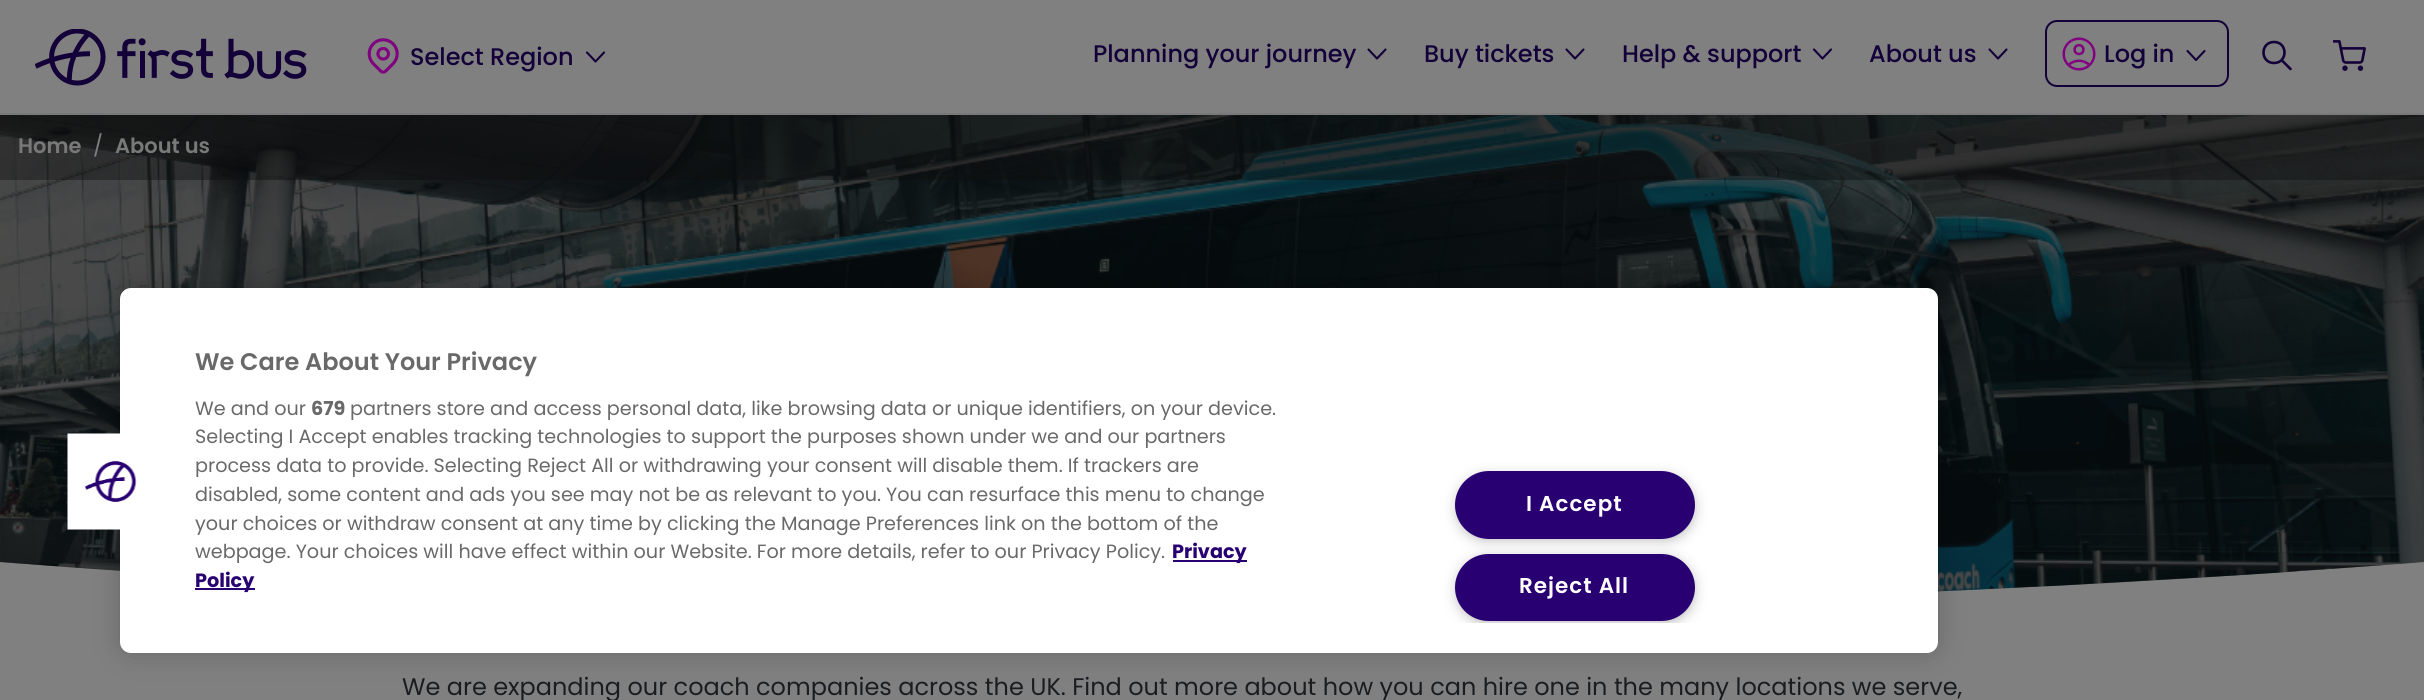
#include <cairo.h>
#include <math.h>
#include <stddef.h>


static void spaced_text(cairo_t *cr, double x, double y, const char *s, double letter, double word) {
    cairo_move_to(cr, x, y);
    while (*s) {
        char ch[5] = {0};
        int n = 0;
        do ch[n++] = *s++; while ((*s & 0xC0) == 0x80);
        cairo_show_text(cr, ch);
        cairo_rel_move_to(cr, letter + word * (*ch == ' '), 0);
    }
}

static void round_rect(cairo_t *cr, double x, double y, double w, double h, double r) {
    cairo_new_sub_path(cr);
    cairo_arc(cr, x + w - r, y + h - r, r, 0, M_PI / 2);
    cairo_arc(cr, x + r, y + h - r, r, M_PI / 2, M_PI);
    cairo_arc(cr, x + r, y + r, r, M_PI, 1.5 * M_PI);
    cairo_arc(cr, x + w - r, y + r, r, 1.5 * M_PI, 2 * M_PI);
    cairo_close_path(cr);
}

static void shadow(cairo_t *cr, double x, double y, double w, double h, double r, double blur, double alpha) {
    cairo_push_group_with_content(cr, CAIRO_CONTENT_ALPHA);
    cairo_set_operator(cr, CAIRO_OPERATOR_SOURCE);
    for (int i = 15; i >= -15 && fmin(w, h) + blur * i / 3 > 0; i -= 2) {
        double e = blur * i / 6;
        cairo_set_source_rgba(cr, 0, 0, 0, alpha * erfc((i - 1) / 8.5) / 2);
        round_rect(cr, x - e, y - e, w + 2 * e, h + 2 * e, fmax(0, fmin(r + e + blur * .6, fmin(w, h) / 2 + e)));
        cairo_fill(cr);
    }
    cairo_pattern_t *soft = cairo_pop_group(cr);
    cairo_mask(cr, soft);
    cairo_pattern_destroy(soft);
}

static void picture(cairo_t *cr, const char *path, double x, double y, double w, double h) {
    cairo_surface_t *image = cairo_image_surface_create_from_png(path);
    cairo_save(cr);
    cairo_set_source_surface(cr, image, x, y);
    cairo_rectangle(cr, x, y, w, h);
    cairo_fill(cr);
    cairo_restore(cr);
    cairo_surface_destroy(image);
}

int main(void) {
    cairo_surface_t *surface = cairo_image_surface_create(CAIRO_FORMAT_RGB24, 2424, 700);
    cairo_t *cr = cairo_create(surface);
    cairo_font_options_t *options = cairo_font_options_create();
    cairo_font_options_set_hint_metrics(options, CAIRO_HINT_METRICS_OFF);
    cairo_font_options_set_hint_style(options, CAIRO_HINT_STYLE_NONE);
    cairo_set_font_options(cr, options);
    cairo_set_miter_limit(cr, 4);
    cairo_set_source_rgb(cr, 0.502, 0.502, 0.502);
    cairo_paint(cr);
    picture(cr, "img5.png", 0, 115, 2424, 477);
    cairo_set_source_rgba(cr, 0.055, 0.055, 0.055, 0.38);
    cairo_new_path(cr);
    cairo_move_to(cr, 0, 114);
    cairo_line_to(cr, 2424, 114);
    cairo_line_to(cr, 2424, 562);
    cairo_curve_to(cr, 2055, 591, 1645, 607, 1212, 607);
    cairo_curve_to(cr, 779, 607, 369, 591, 0, 562);
    cairo_close_path(cr);
    cairo_fill(cr);
    cairo_set_source_rgb(cr, 0.475, 0.475, 0.475);
    cairo_rectangle(cr, 0, 113, 2424, 2);
    cairo_fill(cr);
    picture(cr, "img1.png", 35, 29, 272, 57);
    picture(cr, "img2.png", 367, 38, 32, 36);
    cairo_select_font_face(cr, "Poppins Medium", CAIRO_FONT_SLANT_NORMAL, CAIRO_FONT_WEIGHT_NORMAL);
    cairo_set_font_size(cr, 24);
    cairo_set_source_rgb(cr, 0.078, 0, 0.224);
    cairo_move_to(cr, 410, 65);
    cairo_show_text(cr, "Select Region");
    cairo_new_path(cr);
    cairo_move_to(cr, 604, 52.5);
    cairo_line_to(cr, 595.5, 61.5);
    cairo_line_to(cr, 587, 52.5);
    cairo_set_line_width(cr, 2.1);
    cairo_set_line_cap(cr, CAIRO_LINE_CAP_ROUND);
    cairo_set_line_join(cr, CAIRO_LINE_JOIN_ROUND);
    cairo_stroke(cr);
    cairo_move_to(cr, 1093, 62);
    cairo_show_text(cr, "Planning your journey");
    cairo_new_path(cr);
    cairo_move_to(cr, 1385.5, 49.5);
    cairo_line_to(cr, 1377, 58.5);
    cairo_line_to(cr, 1368.5, 49.5);
    cairo_stroke(cr);
    cairo_move_to(cr, 1424, 62);
    cairo_show_text(cr, "Buy tickets");
    cairo_new_path(cr);
    cairo_move_to(cr, 1583.5, 49.5);
    cairo_line_to(cr, 1575, 58.5);
    cairo_line_to(cr, 1566.5, 49.5);
    cairo_stroke(cr);
    cairo_move_to(cr, 1622, 62);
    cairo_show_text(cr, "Help & support");
    cairo_new_path(cr);
    cairo_move_to(cr, 1831, 49.5);
    cairo_line_to(cr, 1822.5, 58.5);
    cairo_line_to(cr, 1814, 49.5);
    cairo_stroke(cr);
    cairo_move_to(cr, 1869, 62);
    cairo_show_text(cr, "About us");
    cairo_new_path(cr);
    cairo_move_to(cr, 2006.5, 49.5);
    cairo_line_to(cr, 1998, 58.5);
    cairo_line_to(cr, 1989.5, 49.5);
    cairo_stroke(cr);
    round_rect(cr, 2046, 21, 182, 65, 11);
    cairo_set_line_width(cr, 2);
    cairo_set_line_cap(cr, CAIRO_LINE_CAP_BUTT);
    cairo_set_line_join(cr, CAIRO_LINE_JOIN_MITER);
    cairo_stroke(cr);
    picture(cr, "img3.png", 2062, 37, 34, 34);
    cairo_move_to(cr, 2104, 62);
    cairo_show_text(cr, "Log in");
    cairo_new_path(cr);
    cairo_move_to(cr, 2204.5, 51);
    cairo_line_to(cr, 2196, 60);
    cairo_line_to(cr, 2187.5, 51);
    cairo_set_line_width(cr, 2.1);
    cairo_set_line_cap(cr, CAIRO_LINE_CAP_ROUND);
    cairo_set_line_join(cr, CAIRO_LINE_JOIN_ROUND);
    cairo_stroke(cr);
    cairo_new_path(cr);
    cairo_move_to(cr, 2274, 63);
    cairo_curve_to(cr, 2288, 63, 2288, 42, 2274, 42);
    cairo_curve_to(cr, 2260, 42, 2260, 63, 2274, 63);
    cairo_close_path(cr);
    cairo_move_to(cr, 2290.5, 69);
    cairo_line_to(cr, 2281.5, 60);
    cairo_set_line_width(cr, 2.6);
    cairo_stroke(cr);
    picture(cr, "img4.png", 2333, 40, 33, 31);
    cairo_set_source_rgba(cr, 0.055, 0.055, 0.055, 0.4);
    cairo_rectangle(cr, 0, 115, 2424, 65);
    cairo_fill(cr);
    cairo_select_font_face(cr, "Poppins SemiBold", CAIRO_FONT_SLANT_NORMAL, CAIRO_FONT_WEIGHT_NORMAL);
    cairo_set_font_size(cr, 21);
    cairo_set_source_rgb(cr, 0.475, 0.475, 0.475);
    cairo_move_to(cr, 18, 153);
    cairo_show_text(cr, "Home");
    cairo_select_font_face(cr, "Poppins", CAIRO_FONT_SLANT_NORMAL, CAIRO_FONT_WEIGHT_NORMAL);
    cairo_set_source_rgb(cr, 0.502, 0.502, 0.502);
    cairo_move_to(cr, 93, 153);
    cairo_show_text(cr, "/");
    cairo_select_font_face(cr, "Poppins SemiBold", CAIRO_FONT_SLANT_NORMAL, CAIRO_FONT_WEIGHT_NORMAL);
    cairo_set_source_rgb(cr, 0.475, 0.475, 0.475);
    cairo_move_to(cr, 115, 153);
    cairo_show_text(cr, "About us");
    cairo_select_font_face(cr, "Poppins", CAIRO_FONT_SLANT_NORMAL, CAIRO_FONT_WEIGHT_NORMAL);
    cairo_set_font_size(cr, 24);
    cairo_set_source_rgb(cr, 0.102, 0.114, 0.125);
    cairo_move_to(cr, 402, 695);
    cairo_show_text(cr, "We are expanding our coach companies across the UK. Find out more about how you can hire one in the many locations we serve,");
    cairo_set_source_rgb(cr, 0, 0, 0);
    shadow(cr, 120, 288, 1818, 365, 11, 13.5, 0.2);
    cairo_set_source_rgb(cr, 1, 1, 1);
    round_rect(cr, 120, 288, 1818, 365, 11);
    cairo_fill(cr);
    picture(cr, "img6.png", 67, 433, 70, 97);
    cairo_select_font_face(cr, "Poppins SemiBold", CAIRO_FONT_SLANT_NORMAL, CAIRO_FONT_WEIGHT_NORMAL);
    cairo_set_source_rgb(cr, 0.412, 0.412, 0.412);
    cairo_move_to(cr, 195, 370);
    cairo_show_text(cr, "We Care About Your Privacy");
    cairo_select_font_face(cr, "Poppins", CAIRO_FONT_SLANT_NORMAL, CAIRO_FONT_WEIGHT_NORMAL);
    cairo_set_font_size(cr, 19.2);
    cairo_move_to(cr, 195, 415);
    cairo_show_text(cr, "We and our");
    cairo_select_font_face(cr, "Poppins", CAIRO_FONT_SLANT_NORMAL, CAIRO_FONT_WEIGHT_BOLD);
    cairo_move_to(cr, 311, 415);
    cairo_show_text(cr, "679");
    cairo_select_font_face(cr, "Poppins", CAIRO_FONT_SLANT_NORMAL, CAIRO_FONT_WEIGHT_NORMAL);
    cairo_move_to(cr, 350, 415);
    cairo_show_text(cr, "partners store and access personal data, like browsing data or unique identifiers, on your device.");
    cairo_move_to(cr, 195, 443);
    cairo_show_text(cr, "Selecting I Accept enables tracking technologies to support the purposes shown under we and our partners");
    cairo_move_to(cr, 195, 472);
    cairo_show_text(cr, "process data to provide. Selecting Reject All or withdrawing your consent will disable them. If trackers are");
    cairo_move_to(cr, 195, 501);
    cairo_show_text(cr, "disabled, some content and ads you see may not be as relevant to you. You can resurface this menu to change");
    cairo_move_to(cr, 195, 530);
    cairo_show_text(cr, "your choices or withdraw consent at any time by clicking the Manage Preferences link on the bottom of the");
    cairo_move_to(cr, 195, 558);
    cairo_show_text(cr, "webpage. Your choices will have effect within our Website. For more details, refer to our Privacy Policy.");
    cairo_set_source_rgb(cr, 0.157, 0, 0.443);
    cairo_rectangle(cr, 1173, 560, 74, 2);
    cairo_fill(cr);
    cairo_select_font_face(cr, "Poppins", CAIRO_FONT_SLANT_NORMAL, CAIRO_FONT_WEIGHT_BOLD);
    cairo_move_to(cr, 1172, 558);
    cairo_show_text(cr, "Privacy");
    cairo_rectangle(cr, 195, 588, 60, 2);
    cairo_fill(cr);
    cairo_move_to(cr, 195, 587);
    cairo_show_text(cr, "Policy");
    cairo_set_source_rgb(cr, 0.6, 0.6, 0.6);
    shadow(cr, 1460, 479, 231, 58, 29, 7.5, 1);
    cairo_set_source_rgb(cr, 0.157, 0, 0.443);
    round_rect(cr, 1456, 472, 238, 66, 33);
    cairo_fill_preserve(cr);
    cairo_set_line_width(cr, 2);
    cairo_set_line_cap(cr, CAIRO_LINE_CAP_BUTT);
    cairo_set_line_join(cr, CAIRO_LINE_JOIN_MITER);
    cairo_stroke(cr);
    cairo_select_font_face(cr, "Poppins SemiBold", CAIRO_FONT_SLANT_NORMAL, CAIRO_FONT_WEIGHT_NORMAL);
    cairo_set_font_size(cr, 21.5);
    cairo_set_source_rgb(cr, 1, 1, 1);
    spaced_text(cr, 1526, 511, "I Accept", 1, 0);
    cairo_save(cr);
    cairo_rectangle(cr, 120, 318, 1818, 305);
    cairo_clip(cr);
    cairo_set_source_rgb(cr, 0.6, 0.6, 0.6);
    shadow(cr, 1460, 561, 231, 59, 29.5, 7.5, 1);
    cairo_restore(cr);
    cairo_set_source_rgb(cr, 0.157, 0, 0.443);
    round_rect(cr, 1456, 555, 238, 65, 32.5);
    cairo_fill_preserve(cr);
    cairo_stroke(cr);
    cairo_set_source_rgb(cr, 1, 1, 1);
    spaced_text(cr, 1519, 593, "Reject All", 1, 0);
    cairo_surface_write_to_png(surface, "page.png");
    cairo_font_options_destroy(options);
    cairo_destroy(cr);
    cairo_surface_destroy(surface);
    return 0;
}
